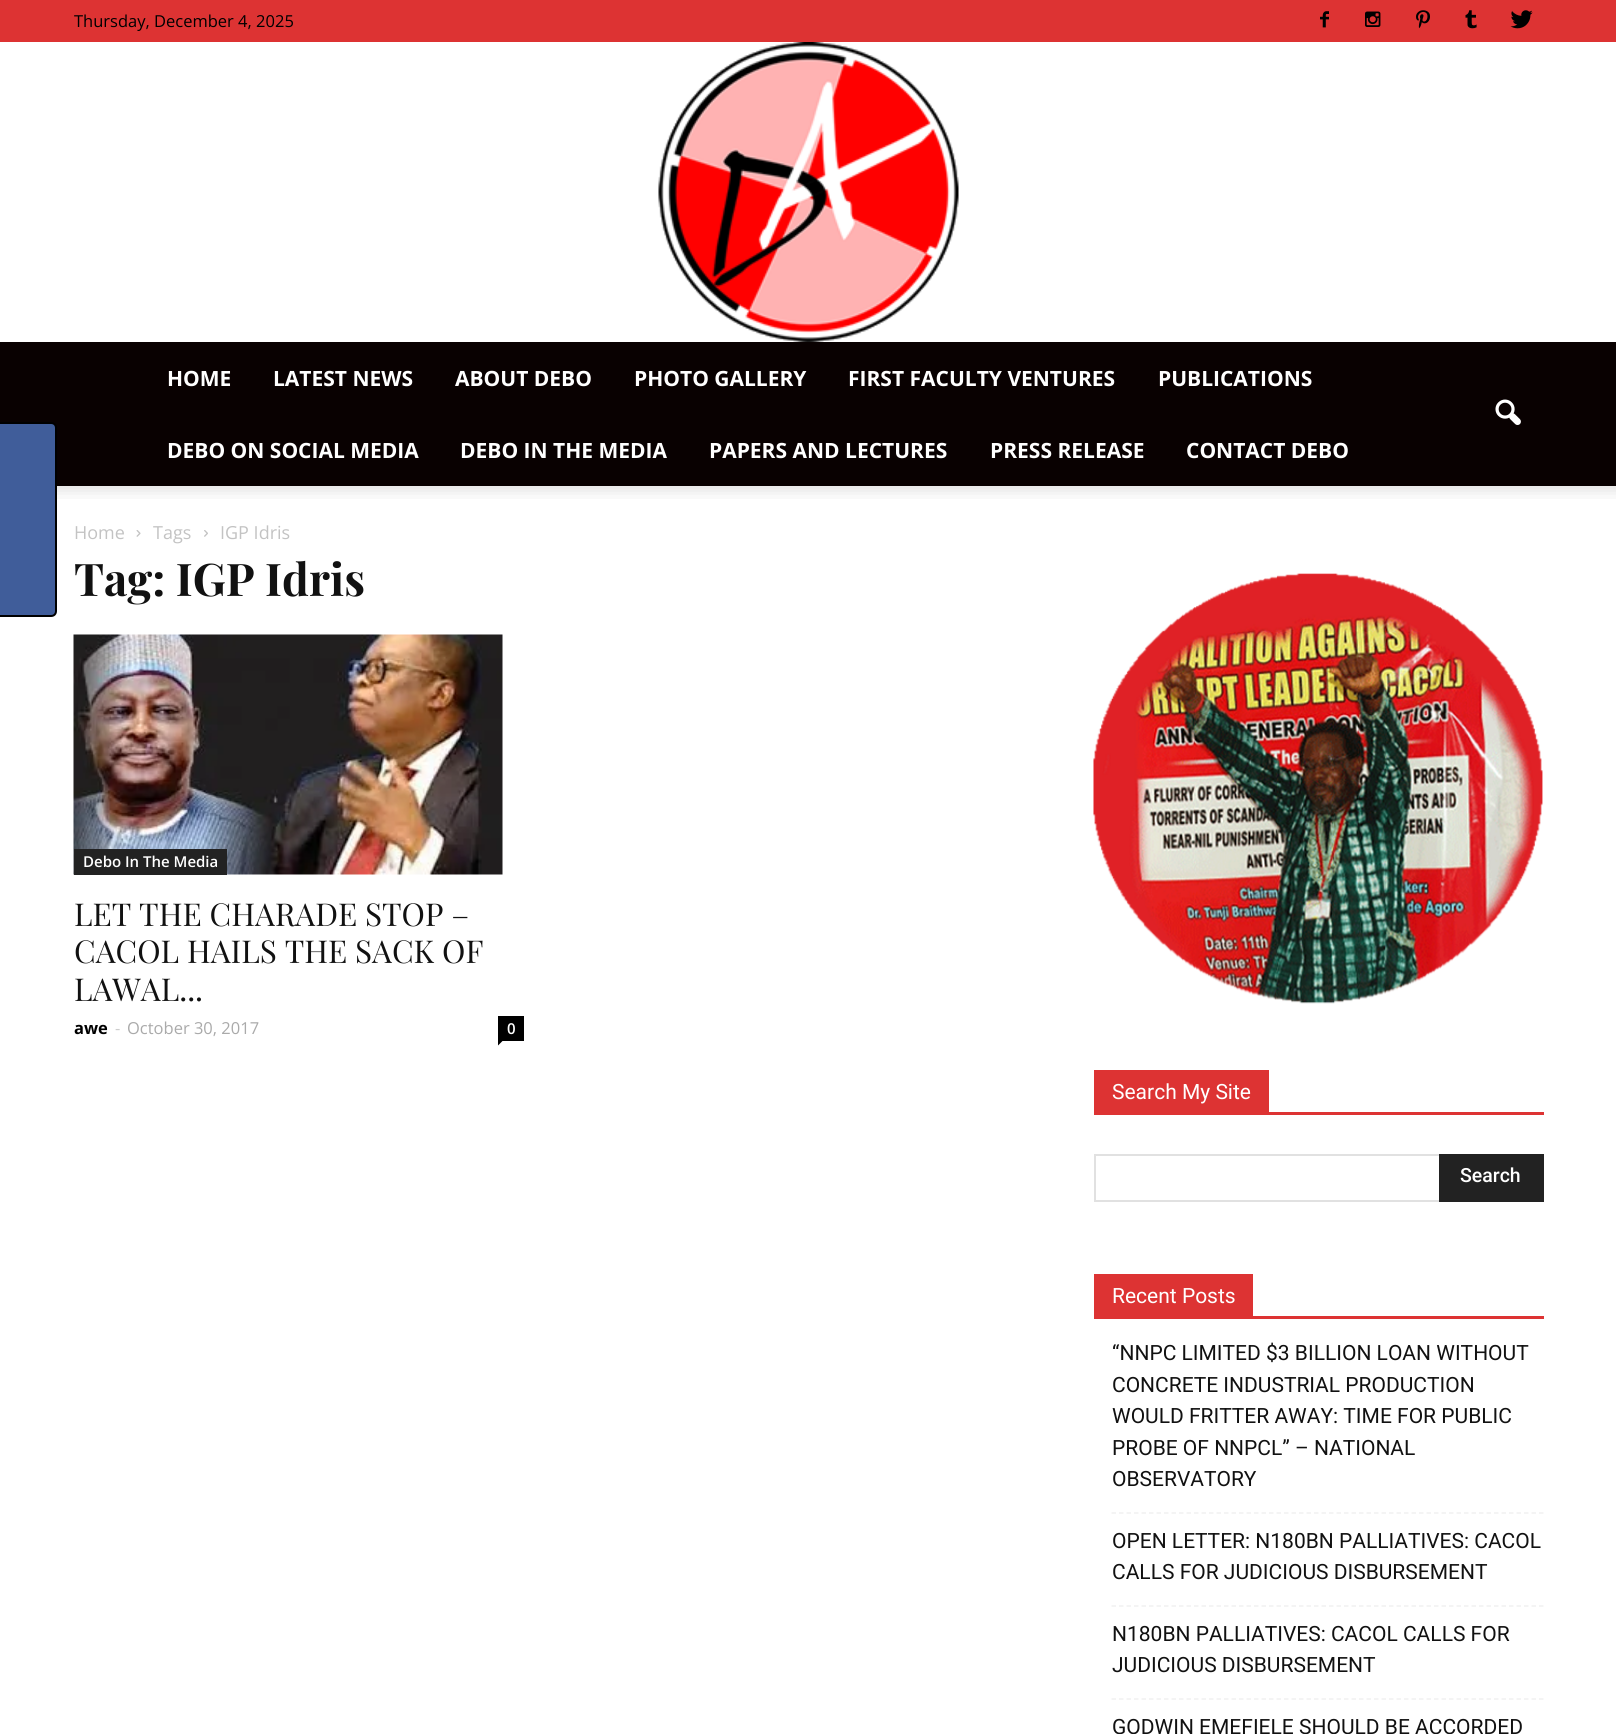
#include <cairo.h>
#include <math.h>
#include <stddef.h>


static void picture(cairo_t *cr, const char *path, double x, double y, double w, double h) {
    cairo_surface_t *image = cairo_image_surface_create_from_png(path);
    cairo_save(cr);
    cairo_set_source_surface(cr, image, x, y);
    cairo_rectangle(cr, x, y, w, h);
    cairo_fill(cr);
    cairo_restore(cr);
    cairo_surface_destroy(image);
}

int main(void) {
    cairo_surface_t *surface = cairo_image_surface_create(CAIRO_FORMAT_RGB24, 1616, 1734);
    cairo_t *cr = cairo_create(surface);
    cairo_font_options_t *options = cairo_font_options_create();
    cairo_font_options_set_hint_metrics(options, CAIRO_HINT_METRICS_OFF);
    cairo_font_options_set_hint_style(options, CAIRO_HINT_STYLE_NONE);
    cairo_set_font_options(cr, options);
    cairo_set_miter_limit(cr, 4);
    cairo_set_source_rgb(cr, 0.867, 0.2, 0.2);
    cairo_paint(cr);
    cairo_set_source_rgb(cr, 0.039, 0.004, 0.004);
    cairo_rectangle(cr, 0, 342, 1616, 144);
    cairo_fill(cr);
    cairo_set_source_rgb(cr, 1, 1, 1);
    cairo_rectangle(cr, 0, 486, 1616, 1248);
    cairo_fill(cr);
    cairo_set_source_rgb(cr, 0.251, 0.365, 0.604);
    cairo_new_path(cr);
    cairo_move_to(cr, -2, 423);
    cairo_line_to(cr, 51, 423);
    cairo_curve_to(cr, 54, 423, 56, 425, 56, 428);
    cairo_line_to(cr, 56, 611);
    cairo_curve_to(cr, 56, 614, 54, 616, 51, 616);
    cairo_line_to(cr, -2, 616);
    cairo_close_path(cr);
    cairo_fill_preserve(cr);
    cairo_set_source_rgb(cr, 0, 0, 0);
    cairo_stroke(cr);
    cairo_select_font_face(cr, "Open Sans", CAIRO_FONT_SLANT_NORMAL, CAIRO_FONT_WEIGHT_NORMAL);
    cairo_set_font_size(cr, 16.5);
    cairo_move_to(cr, 74, 27);
    cairo_show_text(cr, "Thursday, December 4, 2025");
    picture(cr, "img1.png", 1320, 11, 9, 17);
    picture(cr, "img2.png", 1365, 11, 16, 16);
    picture(cr, "img3.png", 1416, 10, 14, 19);
    picture(cr, "img4.png", 1465, 10, 12, 19);
    picture(cr, "img5.png", 1510, 10, 23, 19);
    cairo_set_source_rgb(cr, 1, 1, 1);
    cairo_rectangle(cr, 0, 42, 1616, 300);
    cairo_fill(cr);
    picture(cr, "img6.png", 658, 42, 301, 300);
    cairo_select_font_face(cr, "Open Sans", CAIRO_FONT_SLANT_NORMAL, CAIRO_FONT_WEIGHT_BOLD);
    cairo_set_font_size(cr, 21);
    cairo_move_to(cr, 167, 386);
    cairo_show_text(cr, "HOME");
    cairo_move_to(cr, 273, 386);
    cairo_show_text(cr, "LATEST NEWS");
    cairo_move_to(cr, 455, 386);
    cairo_show_text(cr, "ABOUT DEBO");
    cairo_move_to(cr, 634, 386);
    cairo_show_text(cr, "PHOTO GALLERY");
    cairo_move_to(cr, 848, 386);
    cairo_show_text(cr, "FIRST FACULTY VENTURES");
    cairo_move_to(cr, 1158, 386);
    cairo_show_text(cr, "PUBLICATIONS");
    cairo_move_to(cr, 167, 458);
    cairo_show_text(cr, "DEBO ON SOCIAL MEDIA");
    cairo_move_to(cr, 460, 458);
    cairo_show_text(cr, "DEBO IN THE MEDIA");
    cairo_move_to(cr, 709, 458);
    cairo_show_text(cr, "PAPERS AND LECTURES");
    cairo_move_to(cr, 990, 458);
    cairo_show_text(cr, "PRESS RELEASE");
    cairo_move_to(cr, 1186, 458);
    cairo_show_text(cr, "CONTACT DEBO");
    picture(cr, "img7.png", 1495, 399, 26, 26);
    picture(cr, "img8.png", 57, 486, 1559, 13);
    cairo_select_font_face(cr, "Open Sans", CAIRO_FONT_SLANT_NORMAL, CAIRO_FONT_WEIGHT_NORMAL);
    cairo_set_font_size(cr, 18);
    cairo_set_source_rgb(cr, 0.765, 0.765, 0.765);
    cairo_move_to(cr, 74, 539);
    cairo_show_text(cr, "Home");
    picture(cr, "img9.png", 136, 530, 5, 7);
    cairo_move_to(cr, 153, 539);
    cairo_show_text(cr, "Tags");
    picture(cr, "img10.png", 204, 530, 4, 7);
    cairo_move_to(cr, 220, 539);
    cairo_show_text(cr, "IGP Idris");
    cairo_select_font_face(cr, "Playfair Display", CAIRO_FONT_SLANT_NORMAL, CAIRO_FONT_WEIGHT_BOLD);
    cairo_set_font_size(cr, 45);
    cairo_set_source_rgb(cr, 0.067, 0.067, 0.067);
    cairo_move_to(cr, 74, 596);
    cairo_show_text(cr, "Tag: IGP Idris");
    picture(cr, "img11.png", 73, 634, 430, 241);
    cairo_set_source_rgb(cr, 0.133, 0.133, 0.133);
    cairo_rectangle(cr, 74, 849, 153, 26);
    cairo_fill(cr);
    cairo_select_font_face(cr, "Open Sans SemiBold", CAIRO_FONT_SLANT_NORMAL, CAIRO_FONT_WEIGHT_NORMAL);
    cairo_set_font_size(cr, 15);
    cairo_set_source_rgb(cr, 1, 1, 1);
    cairo_move_to(cr, 83, 867);
    cairo_show_text(cr, "Debo In The Media");
    cairo_select_font_face(cr, "Playfair Display", CAIRO_FONT_SLANT_NORMAL, CAIRO_FONT_WEIGHT_NORMAL);
    cairo_set_font_size(cr, 31.5);
    cairo_set_source_rgb(cr, 0.067, 0.067, 0.067);
    cairo_move_to(cr, 74, 926);
    cairo_show_text(cr, "LET THE CHARADE STOP –");
    cairo_move_to(cr, 74, 963);
    cairo_show_text(cr, "CACOL HAILS THE SACK OF");
    cairo_move_to(cr, 74, 1001);
    cairo_show_text(cr, "LAWAL...");
    cairo_select_font_face(cr, "Open Sans", CAIRO_FONT_SLANT_NORMAL, CAIRO_FONT_WEIGHT_BOLD);
    cairo_set_font_size(cr, 16.5);
    cairo_set_source_rgb(cr, 0, 0, 0);
    cairo_move_to(cr, 74, 1034);
    cairo_show_text(cr, "awe");
    cairo_select_font_face(cr, "Open Sans", CAIRO_FONT_SLANT_NORMAL, CAIRO_FONT_WEIGHT_NORMAL);
    cairo_set_source_rgb(cr, 0.8, 0.8, 0.8);
    cairo_move_to(cr, 115, 1034);
    cairo_show_text(cr, "-");
    cairo_set_source_rgb(cr, 0.667, 0.667, 0.667);
    cairo_move_to(cr, 127, 1034);
    cairo_show_text(cr, "October 30, 2017");
    cairo_set_source_rgb(cr, 0, 0, 0);
    cairo_rectangle(cr, 498, 1016, 26, 25);
    cairo_fill(cr);
    cairo_select_font_face(cr, "Open Sans SemiBold", CAIRO_FONT_SLANT_NORMAL, CAIRO_FONT_WEIGHT_NORMAL);
    cairo_set_font_size(cr, 15);
    cairo_set_source_rgb(cr, 1, 1, 1);
    cairo_move_to(cr, 507, 1034);
    cairo_show_text(cr, "0");
    cairo_set_source_rgb(cr, 0, 0, 0);
    cairo_new_path(cr);
    cairo_move_to(cr, 498, 1041);
    cairo_line_to(cr, 502.5, 1041);
    cairo_line_to(cr, 498, 1045.5);
    cairo_close_path(cr);
    cairo_fill(cr);
    picture(cr, "img12.png", 1093, 573, 450, 431);
    cairo_set_source_rgb(cr, 0.867, 0.2, 0.2);
    cairo_rectangle(cr, 1094, 1112, 450, 3);
    cairo_fill(cr);
    cairo_rectangle(cr, 1094, 1070, 175, 42);
    cairo_fill(cr);
    cairo_select_font_face(cr, "Roboto", CAIRO_FONT_SLANT_NORMAL, CAIRO_FONT_WEIGHT_NORMAL);
    cairo_set_font_size(cr, 21);
    cairo_set_source_rgb(cr, 1, 1, 1);
    cairo_move_to(cr, 1112, 1099);
    cairo_show_text(cr, "Search My Site");
    cairo_set_source_rgb(cr, 0.882, 0.882, 0.882);
    cairo_rectangle(cr, 1094, 1154, 345, 2);
    cairo_fill(cr);
    cairo_rectangle(cr, 1094, 1200, 345, 2);
    cairo_fill(cr);
    cairo_rectangle(cr, 1094, 1154, 2, 48);
    cairo_fill(cr);
    cairo_set_source_rgb(cr, 0.133, 0.133, 0.133);
    cairo_rectangle(cr, 1439, 1154, 105, 48);
    cairo_fill(cr);
    cairo_select_font_face(cr, "Roboto Medium", CAIRO_FONT_SLANT_NORMAL, CAIRO_FONT_WEIGHT_NORMAL);
    cairo_set_font_size(cr, 19.5);
    cairo_set_source_rgb(cr, 1, 1, 1);
    cairo_move_to(cr, 1460, 1182);
    cairo_show_text(cr, "Search");
    cairo_set_source_rgb(cr, 0.867, 0.2, 0.2);
    cairo_rectangle(cr, 1094, 1316, 450, 3);
    cairo_fill(cr);
    cairo_rectangle(cr, 1094, 1274, 159, 42);
    cairo_fill(cr);
    cairo_select_font_face(cr, "Roboto", CAIRO_FONT_SLANT_NORMAL, CAIRO_FONT_WEIGHT_NORMAL);
    cairo_set_font_size(cr, 21);
    cairo_set_source_rgb(cr, 1, 1, 1);
    cairo_move_to(cr, 1112, 1303);
    cairo_show_text(cr, "Recent Posts");
    cairo_new_path(cr);
    cairo_move_to(cr, 1111.5, 1513);
    cairo_line_to(cr, 1543.5, 1513);
    cairo_set_source_rgb(cr, 0.945, 0.945, 0.945);
    cairo_set_line_width(cr, 1.5);
    cairo_set_dash(cr, (double[]){4.5, 3}, 2, 0);
    cairo_stroke(cr);
    cairo_set_source_rgb(cr, 0.067, 0.067, 0.067);
    cairo_move_to(cr, 1112, 1360);
    cairo_show_text(cr, "“NNPC LIMITED $3 BILLION LOAN WITHOUT");
    cairo_move_to(cr, 1112, 1392);
    cairo_show_text(cr, "CONCRETE INDUSTRIAL PRODUCTION");
    cairo_move_to(cr, 1112, 1423);
    cairo_show_text(cr, "WOULD FRITTER AWAY: TIME FOR PUBLIC");
    cairo_move_to(cr, 1112, 1455);
    cairo_show_text(cr, "PROBE OF NNPCL” – NATIONAL");
    cairo_move_to(cr, 1112, 1486);
    cairo_show_text(cr, "OBSERVATORY");
    cairo_new_path(cr);
    cairo_move_to(cr, 1111.5, 1606);
    cairo_line_to(cr, 1543.5, 1606);
    cairo_set_source_rgb(cr, 0.945, 0.945, 0.945);
    cairo_stroke(cr);
    cairo_set_source_rgb(cr, 0.067, 0.067, 0.067);
    cairo_move_to(cr, 1112, 1548);
    cairo_show_text(cr, "OPEN LETTER: N180BN PALLIATIVES: CACOL");
    cairo_move_to(cr, 1112, 1579);
    cairo_show_text(cr, "CALLS FOR JUDICIOUS DISBURSEMENT");
    cairo_new_path(cr);
    cairo_move_to(cr, 1111.5, 1699);
    cairo_line_to(cr, 1543.5, 1699);
    cairo_set_source_rgb(cr, 0.945, 0.945, 0.945);
    cairo_stroke(cr);
    cairo_set_source_rgb(cr, 0.067, 0.067, 0.067);
    cairo_move_to(cr, 1112, 1641);
    cairo_show_text(cr, "N180BN PALLIATIVES: CACOL CALLS FOR");
    cairo_move_to(cr, 1112, 1672);
    cairo_show_text(cr, "JUDICIOUS DISBURSEMENT");
    cairo_move_to(cr, 1112, 1734);
    cairo_show_text(cr, "GODWIN EMEFIELE SHOULD BE ACCORDED");
    cairo_surface_write_to_png(surface, "page.png");
    cairo_font_options_destroy(options);
    cairo_destroy(cr);
    cairo_surface_destroy(surface);
    return 0;
}
